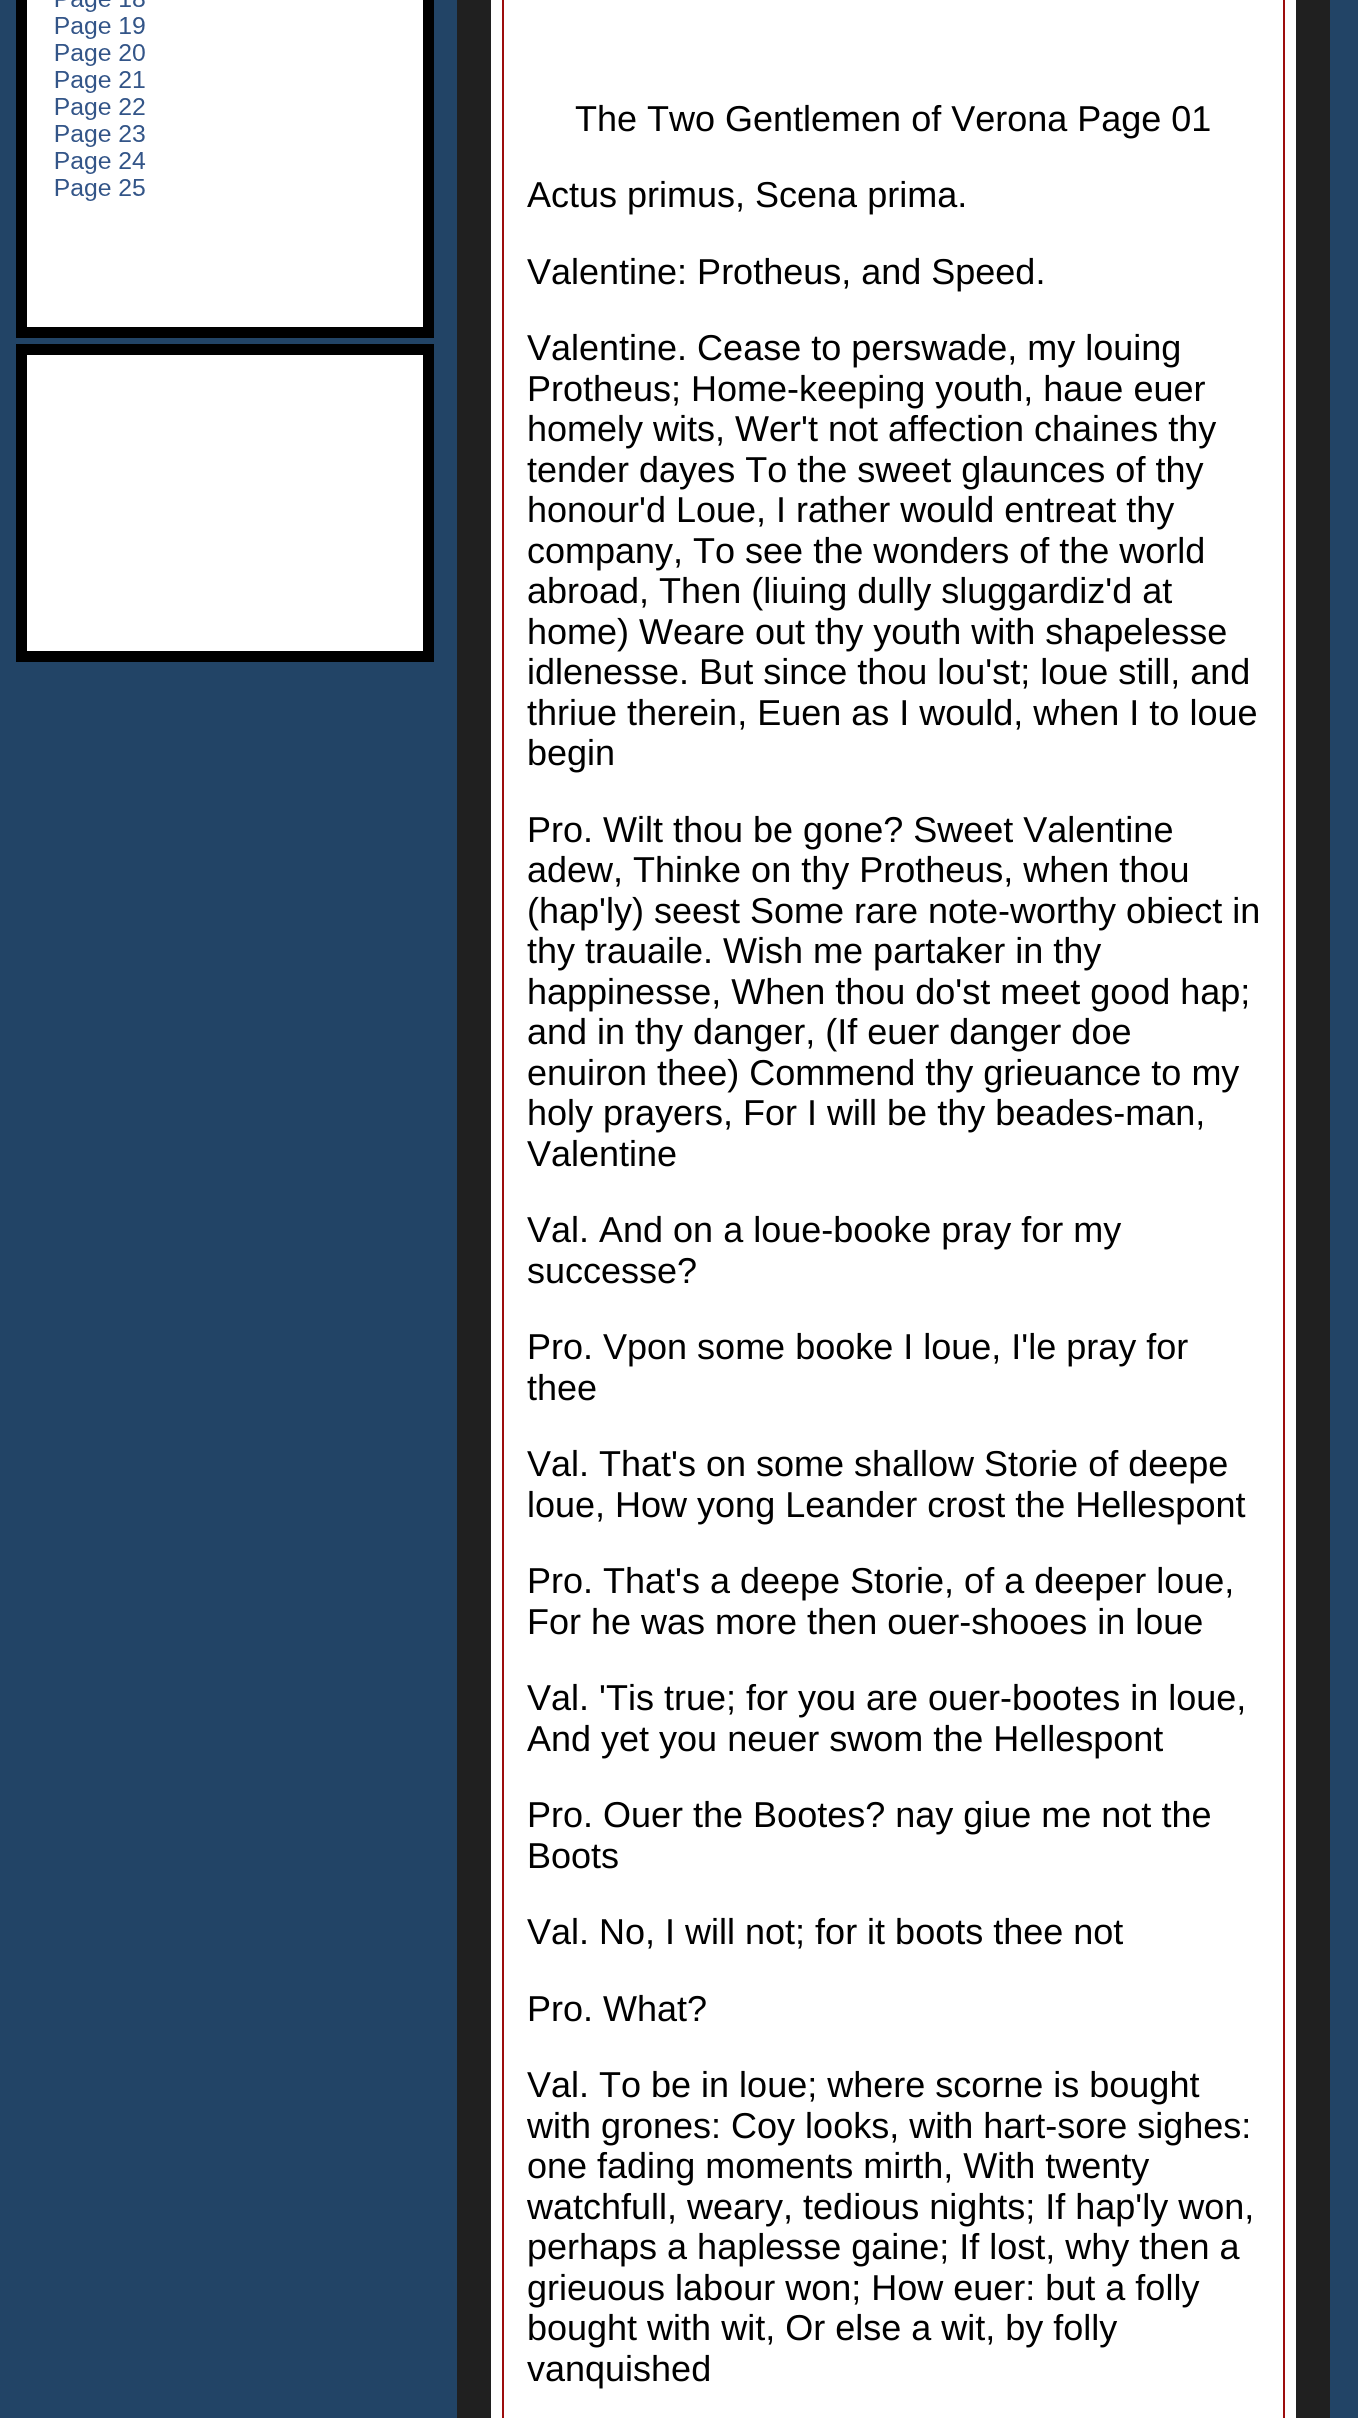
#include <cairo.h>
#include <math.h>
#include <stddef.h>


static void picture(cairo_t *cr, const char *path, double x, double y, double w, double h) {
    cairo_surface_t *image = cairo_image_surface_create_from_png(path);
    cairo_save(cr);
    cairo_set_source_surface(cr, image, x, y);
    cairo_rectangle(cr, x, y, w, h);
    cairo_fill(cr);
    cairo_restore(cr);
    cairo_surface_destroy(image);
}

int main(void) {
    cairo_surface_t *surface = cairo_image_surface_create(CAIRO_FORMAT_RGB24, 1358, 2418);
    cairo_t *cr = cairo_create(surface);
    cairo_font_options_t *options = cairo_font_options_create();
    cairo_font_options_set_hint_metrics(options, CAIRO_HINT_METRICS_OFF);
    cairo_font_options_set_hint_style(options, CAIRO_HINT_STYLE_NONE);
    cairo_set_font_options(cr, options);
    cairo_set_miter_limit(cr, 4);
    cairo_set_source_rgb(cr, 0.133, 0.267, 0.4);
    cairo_paint(cr);
    cairo_set_source_rgb(cr, 1, 1, 1);
    cairo_rectangle(cr, 21.5, -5.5, 407, 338);
    cairo_fill_preserve(cr);
    cairo_set_source_rgb(cr, 0, 0, 0);
    cairo_set_line_width(cr, 11);
    cairo_stroke(cr);
    picture(cr, "img1.png", 55, 0, 91, 201);
    cairo_set_source_rgb(cr, 1, 1, 1);
    cairo_rectangle(cr, 21.5, 349.5, 407, 307);
    cairo_fill_preserve(cr);
    cairo_set_source_rgb(cr, 0, 0, 0);
    cairo_stroke(cr);
    cairo_set_source_rgb(cr, 1, 1, 1);
    cairo_rectangle(cr, 474, -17, 839, 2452);
    cairo_fill_preserve(cr);
    cairo_set_source_rgb(cr, 0.125, 0.125, 0.125);
    cairo_set_line_width(cr, 34);
    cairo_stroke(cr);
    cairo_rectangle(cr, 503, -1, 781, 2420);
    cairo_set_source_rgb(cr, 0.616, 0.051, 0.051);
    cairo_set_line_width(cr, 2);
    cairo_stroke(cr);
    cairo_select_font_face(cr, "Liberation Sans", CAIRO_FONT_SLANT_NORMAL, CAIRO_FONT_WEIGHT_NORMAL);
    cairo_set_font_size(cr, 36);
    cairo_set_source_rgb(cr, 0, 0, 0);
    cairo_move_to(cr, 575, 131);
    cairo_show_text(cr, "The Two Gentlemen of Verona Page 01");
    cairo_move_to(cr, 527, 207);
    cairo_show_text(cr, "Actus primus, Scena prima.");
    cairo_move_to(cr, 527, 284);
    cairo_show_text(cr, "Valentine: Protheus, and Speed.");
    cairo_move_to(cr, 527, 360);
    cairo_show_text(cr, "Valentine. Cease to perswade, my louing");
    cairo_move_to(cr, 527, 401);
    cairo_show_text(cr, "Protheus; Home-keeping youth, haue euer");
    cairo_move_to(cr, 527, 441);
    cairo_show_text(cr, "homely wits, Wer't not affection chaines thy");
    cairo_move_to(cr, 527, 482);
    cairo_show_text(cr, "tender dayes To the sweet glaunces of thy");
    cairo_move_to(cr, 527, 522);
    cairo_show_text(cr, "honour'd Loue, I rather would entreat thy");
    cairo_move_to(cr, 527, 563);
    cairo_show_text(cr, "company, To see the wonders of the world");
    cairo_move_to(cr, 527, 603);
    cairo_show_text(cr, "abroad, Then (liuing dully sluggardiz'd at");
    cairo_move_to(cr, 527, 644);
    cairo_show_text(cr, "home) Weare out thy youth with shapelesse");
    cairo_move_to(cr, 527, 684);
    cairo_show_text(cr, "idlenesse. But since thou lou'st; loue still, and");
    cairo_move_to(cr, 527, 725);
    cairo_show_text(cr, "thriue therein, Euen as I would, when I to loue");
    cairo_move_to(cr, 527, 765);
    cairo_show_text(cr, "begin");
    cairo_move_to(cr, 527, 842);
    cairo_show_text(cr, "Pro. Wilt thou be gone? Sweet Valentine");
    cairo_move_to(cr, 527, 882);
    cairo_show_text(cr, "adew, Thinke on thy Protheus, when thou");
    cairo_move_to(cr, 527, 923);
    cairo_show_text(cr, "(hap'ly) seest Some rare note-worthy obiect in");
    cairo_move_to(cr, 527, 963);
    cairo_show_text(cr, "thy trauaile. Wish me partaker in thy");
    cairo_move_to(cr, 527, 1004);
    cairo_show_text(cr, "happinesse, When thou do'st meet good hap;");
    cairo_move_to(cr, 527, 1044);
    cairo_show_text(cr, "and in thy danger, (If euer danger doe");
    cairo_move_to(cr, 527, 1085);
    cairo_show_text(cr, "enuiron thee) Commend thy grieuance to my");
    cairo_move_to(cr, 527, 1125);
    cairo_show_text(cr, "holy prayers, For I will be thy beades-man,");
    cairo_move_to(cr, 527, 1166);
    cairo_show_text(cr, "Valentine");
    cairo_move_to(cr, 527, 1242);
    cairo_show_text(cr, "Val. And on a loue-booke pray for my");
    cairo_move_to(cr, 527, 1283);
    cairo_show_text(cr, "successe?");
    cairo_move_to(cr, 527, 1359);
    cairo_show_text(cr, "Pro. Vpon some booke I loue, I'le pray for");
    cairo_move_to(cr, 527, 1400);
    cairo_show_text(cr, "thee");
    cairo_move_to(cr, 527, 1476);
    cairo_show_text(cr, "Val. That's on some shallow Storie of deepe");
    cairo_move_to(cr, 527, 1517);
    cairo_show_text(cr, "loue, How yong Leander crost the Hellespont");
    cairo_move_to(cr, 527, 1593);
    cairo_show_text(cr, "Pro. That's a deepe Storie, of a deeper loue,");
    cairo_move_to(cr, 527, 1634);
    cairo_show_text(cr, "For he was more then ouer-shooes in loue");
    cairo_move_to(cr, 527, 1710);
    cairo_show_text(cr, "Val. 'Tis true; for you are ouer-bootes in loue,");
    cairo_move_to(cr, 527, 1751);
    cairo_show_text(cr, "And yet you neuer swom the Hellespont");
    cairo_move_to(cr, 527, 1827);
    cairo_show_text(cr, "Pro. Ouer the Bootes? nay giue me not the");
    cairo_move_to(cr, 527, 1868);
    cairo_show_text(cr, "Boots");
    cairo_move_to(cr, 527, 1944);
    cairo_show_text(cr, "Val. No, I will not; for it boots thee not");
    cairo_move_to(cr, 527, 2021);
    cairo_show_text(cr, "Pro. What?");
    cairo_move_to(cr, 527, 2097);
    cairo_show_text(cr, "Val. To be in loue; where scorne is bought");
    cairo_move_to(cr, 527, 2138);
    cairo_show_text(cr, "with grones: Coy looks, with hart-sore sighes:");
    cairo_move_to(cr, 527, 2178);
    cairo_show_text(cr, "one fading moments mirth, With twenty");
    cairo_move_to(cr, 527, 2219);
    cairo_show_text(cr, "watchfull, weary, tedious nights; If hap'ly won,");
    cairo_move_to(cr, 527, 2259);
    cairo_show_text(cr, "perhaps a haplesse gaine; If lost, why then a");
    cairo_move_to(cr, 527, 2300);
    cairo_show_text(cr, "grieuous labour won; How euer: but a folly");
    cairo_move_to(cr, 527, 2340);
    cairo_show_text(cr, "bought with wit, Or else a wit, by folly");
    cairo_move_to(cr, 527, 2381);
    cairo_show_text(cr, "vanquished");
    cairo_surface_write_to_png(surface, "page.png");
    cairo_font_options_destroy(options);
    cairo_destroy(cr);
    cairo_surface_destroy(surface);
    return 0;
}
